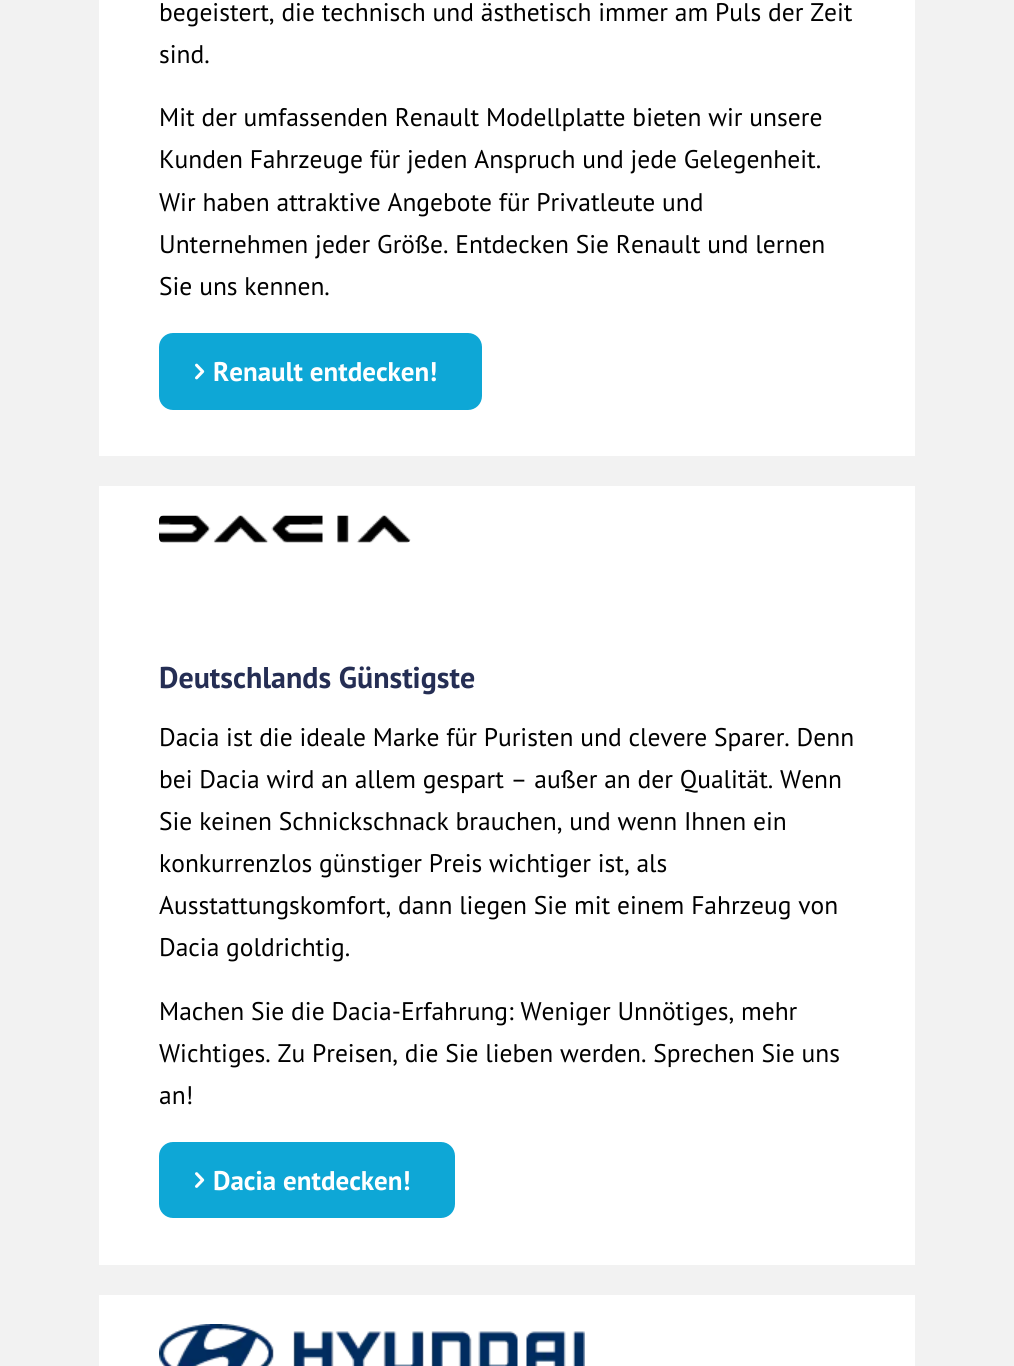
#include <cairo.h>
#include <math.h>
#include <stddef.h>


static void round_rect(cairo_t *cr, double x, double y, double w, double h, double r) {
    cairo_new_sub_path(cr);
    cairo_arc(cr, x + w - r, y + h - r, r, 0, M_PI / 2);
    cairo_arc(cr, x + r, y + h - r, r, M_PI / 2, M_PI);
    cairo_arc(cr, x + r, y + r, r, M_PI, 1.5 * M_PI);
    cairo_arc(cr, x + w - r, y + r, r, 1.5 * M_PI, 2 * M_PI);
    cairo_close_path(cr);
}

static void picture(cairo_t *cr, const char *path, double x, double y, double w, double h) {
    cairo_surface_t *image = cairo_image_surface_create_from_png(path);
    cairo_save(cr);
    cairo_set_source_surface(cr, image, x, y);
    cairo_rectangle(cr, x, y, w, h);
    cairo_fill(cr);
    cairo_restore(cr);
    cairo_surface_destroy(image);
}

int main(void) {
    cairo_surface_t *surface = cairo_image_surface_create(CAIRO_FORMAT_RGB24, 1014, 1366);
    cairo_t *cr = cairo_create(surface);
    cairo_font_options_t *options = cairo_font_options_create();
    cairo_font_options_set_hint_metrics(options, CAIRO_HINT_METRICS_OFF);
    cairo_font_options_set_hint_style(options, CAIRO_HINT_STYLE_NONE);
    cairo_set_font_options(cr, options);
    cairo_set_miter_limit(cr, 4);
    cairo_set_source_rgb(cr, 0.949, 0.949, 0.949);
    cairo_paint(cr);
    cairo_set_source_rgb(cr, 1, 1, 1);
    cairo_rectangle(cr, 99, 0, 816, 456);
    cairo_fill(cr);
    cairo_select_font_face(cr, "PT Sans", CAIRO_FONT_SLANT_NORMAL, CAIRO_FONT_WEIGHT_NORMAL);
    cairo_set_font_size(cr, 25.5);
    cairo_set_source_rgb(cr, 0, 0, 0);
    cairo_move_to(cr, 159, 21);
    cairo_show_text(cr, "begeistert, die technisch und ästhetisch immer am Puls der Zeit");
    cairo_move_to(cr, 159, 63);
    cairo_show_text(cr, "sind.");
    cairo_move_to(cr, 159, 126);
    cairo_show_text(cr, "Mit der umfassenden Renault Modellplatte bieten wir unsere");
    cairo_move_to(cr, 159, 168);
    cairo_show_text(cr, "Kunden Fahrzeuge für jeden Anspruch und jede Gelegenheit.");
    cairo_move_to(cr, 159, 211);
    cairo_show_text(cr, "Wir haben attraktive Angebote für Privatleute und");
    cairo_move_to(cr, 159, 253);
    cairo_show_text(cr, "Unternehmen jeder Größe. Entdecken Sie Renault und lernen");
    cairo_move_to(cr, 159, 295);
    cairo_show_text(cr, "Sie uns kennen.");
    cairo_set_source_rgb(cr, 0.055, 0.655, 0.839);
    round_rect(cr, 159, 333, 323, 77, 14);
    cairo_fill(cr);
    picture(cr, "img1.png", 195, 363, 10, 17);
    cairo_select_font_face(cr, "PT Sans", CAIRO_FONT_SLANT_NORMAL, CAIRO_FONT_WEIGHT_BOLD);
    cairo_set_font_size(cr, 27);
    cairo_set_source_rgb(cr, 1, 1, 1);
    cairo_move_to(cr, 213, 381);
    cairo_show_text(cr, "Renault entdecken!");
    cairo_rectangle(cr, 99, 486, 816, 779);
    cairo_fill(cr);
    picture(cr, "img2.png", 159, 515, 252, 28);
    cairo_set_font_size(cr, 30);
    cairo_set_source_rgb(cr, 0.145, 0.18, 0.329);
    cairo_move_to(cr, 159, 688);
    cairo_show_text(cr, "Deutschlands Günstigste");
    cairo_select_font_face(cr, "PT Sans", CAIRO_FONT_SLANT_NORMAL, CAIRO_FONT_WEIGHT_NORMAL);
    cairo_set_font_size(cr, 25.5);
    cairo_set_source_rgb(cr, 0, 0, 0);
    cairo_move_to(cr, 159, 746);
    cairo_show_text(cr, "Dacia ist die ideale Marke für Puristen und clevere Sparer. Denn");
    cairo_move_to(cr, 159, 788);
    cairo_show_text(cr, "bei Dacia wird an allem gespart – außer an der Qualität. Wenn");
    cairo_move_to(cr, 159, 830);
    cairo_show_text(cr, "Sie keinen Schnickschnack brauchen, und wenn Ihnen ein");
    cairo_move_to(cr, 159, 872);
    cairo_show_text(cr, "konkurrenzlos günstiger Preis wichtiger ist, als");
    cairo_move_to(cr, 159, 914);
    cairo_show_text(cr, "Ausstattungskomfort, dann liegen Sie mit einem Fahrzeug von");
    cairo_move_to(cr, 159, 956);
    cairo_show_text(cr, "Dacia goldrichtig.");
    cairo_move_to(cr, 159, 1020);
    cairo_show_text(cr, "Machen Sie die Dacia-Erfahrung: Weniger Unnötiges, mehr");
    cairo_move_to(cr, 159, 1062);
    cairo_show_text(cr, "Wichtiges. Zu Preisen, die Sie lieben werden. Sprechen Sie uns");
    cairo_move_to(cr, 159, 1104);
    cairo_show_text(cr, "an!");
    cairo_set_source_rgb(cr, 0.055, 0.655, 0.839);
    round_rect(cr, 159, 1142, 296, 76, 14);
    cairo_fill(cr);
    picture(cr, "img3.png", 195, 1172, 10, 16);
    cairo_select_font_face(cr, "PT Sans", CAIRO_FONT_SLANT_NORMAL, CAIRO_FONT_WEIGHT_BOLD);
    cairo_set_font_size(cr, 27);
    cairo_set_source_rgb(cr, 1, 1, 1);
    cairo_move_to(cr, 213, 1190);
    cairo_show_text(cr, "Dacia entdecken!");
    cairo_rectangle(cr, 99, 1295, 816, 71);
    cairo_fill(cr);
    picture(cr, "img4.png", 159, 1324, 426, 42);
    cairo_surface_write_to_png(surface, "page.png");
    cairo_font_options_destroy(options);
    cairo_destroy(cr);
    cairo_surface_destroy(surface);
    return 0;
}
